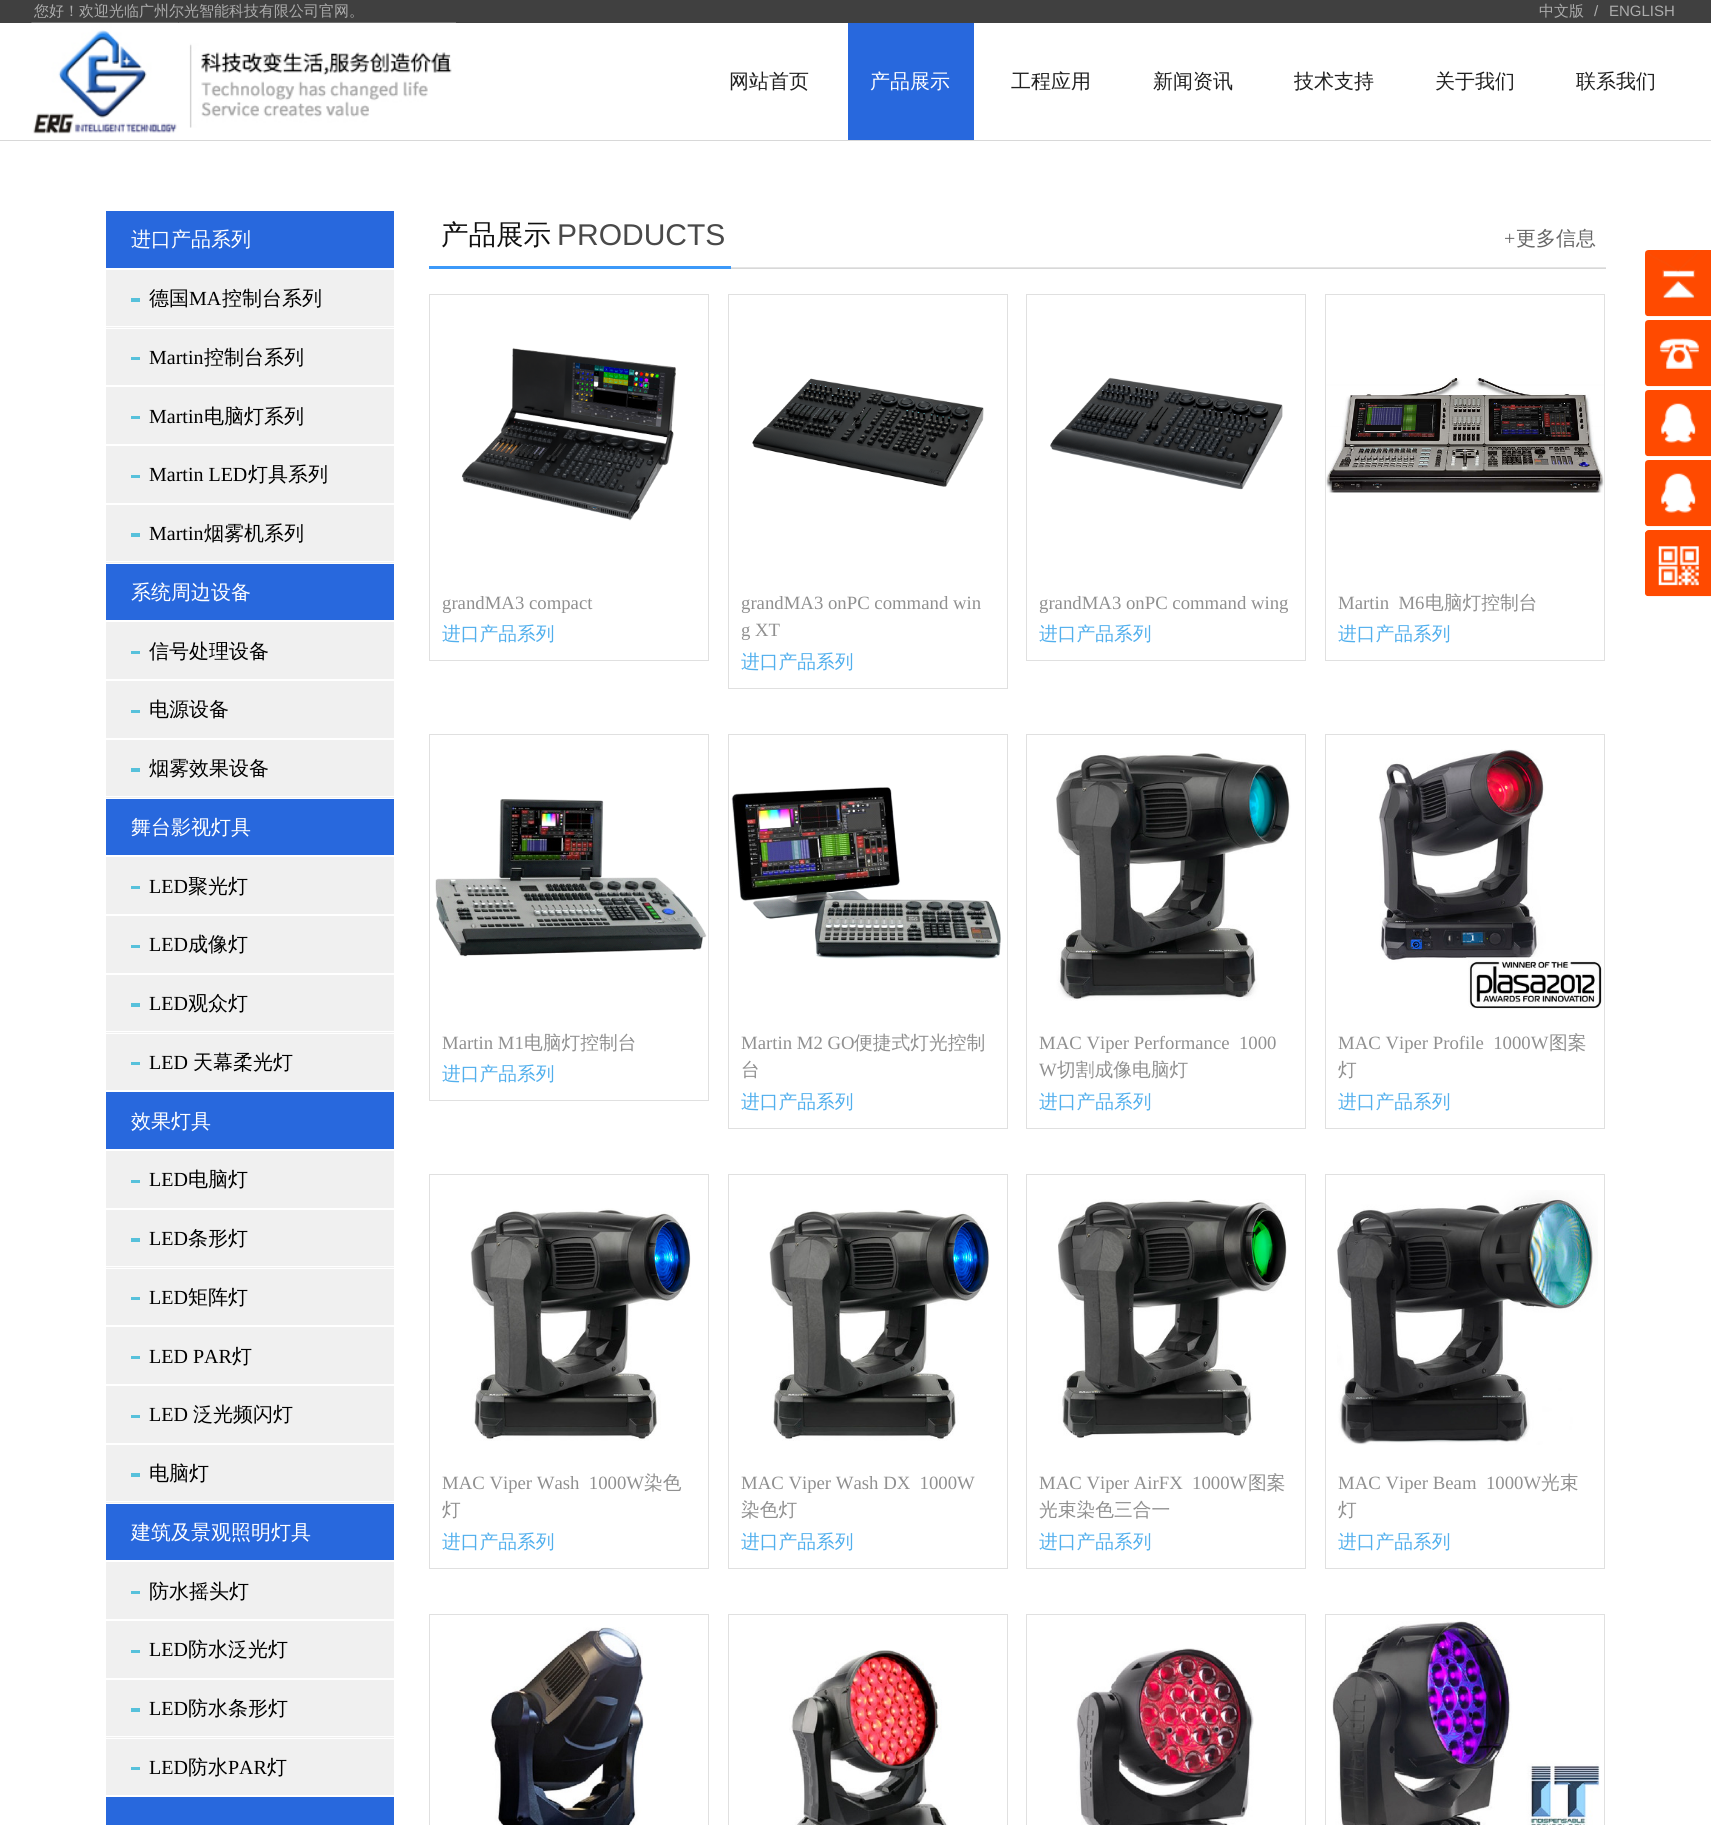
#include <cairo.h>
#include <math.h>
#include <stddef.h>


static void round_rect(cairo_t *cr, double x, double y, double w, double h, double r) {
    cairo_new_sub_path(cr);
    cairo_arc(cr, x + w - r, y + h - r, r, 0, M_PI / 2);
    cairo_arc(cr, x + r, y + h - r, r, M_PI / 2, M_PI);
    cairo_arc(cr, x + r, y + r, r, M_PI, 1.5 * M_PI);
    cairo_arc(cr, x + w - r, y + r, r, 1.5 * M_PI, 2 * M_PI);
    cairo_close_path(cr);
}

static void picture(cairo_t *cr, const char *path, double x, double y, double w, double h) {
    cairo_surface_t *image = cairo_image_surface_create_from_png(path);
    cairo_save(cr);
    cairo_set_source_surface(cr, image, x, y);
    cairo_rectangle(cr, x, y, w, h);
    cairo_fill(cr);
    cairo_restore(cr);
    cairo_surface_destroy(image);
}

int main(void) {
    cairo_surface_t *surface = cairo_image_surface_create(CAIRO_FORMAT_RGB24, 1711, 1825);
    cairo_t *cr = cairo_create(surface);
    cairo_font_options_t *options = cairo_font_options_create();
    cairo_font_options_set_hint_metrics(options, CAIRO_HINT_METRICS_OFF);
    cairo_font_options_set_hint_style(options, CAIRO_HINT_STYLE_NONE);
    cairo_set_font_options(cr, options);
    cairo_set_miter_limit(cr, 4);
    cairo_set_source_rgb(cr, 1, 1, 1);
    cairo_paint(cr);
    cairo_set_source_rgb(cr, 0.251, 0.251, 0.251);
    cairo_rectangle(cr, 0, 0, 1711, 23);
    cairo_fill(cr);
    cairo_select_font_face(cr, "WenQuanYi Zen Hei Medium", CAIRO_FONT_SLANT_NORMAL, CAIRO_FONT_WEIGHT_NORMAL);
    cairo_set_font_size(cr, 15);
    cairo_set_source_rgb(cr, 0.675, 0.675, 0.675);
    cairo_move_to(cr, 34, 16);
    cairo_show_text(cr, "您好！欢迎光临广州尔光智能科技有限公司官网。");
    cairo_move_to(cr, 1539, 16);
    cairo_show_text(cr, "中文版");
    cairo_select_font_face(cr, "Liberation Sans", CAIRO_FONT_SLANT_NORMAL, CAIRO_FONT_WEIGHT_NORMAL);
    cairo_move_to(cr, 1594, 16);
    cairo_show_text(cr, "/");
    cairo_move_to(cr, 1609, 16);
    cairo_show_text(cr, "ENGLISH");
    cairo_set_source_rgb(cr, 0.847, 0.847, 0.847);
    cairo_rectangle(cr, 0, 140, 1711, 1);
    cairo_fill(cr);
    picture(cr, "img1.png", 31, 22, 148, 112);
    picture(cr, "img2.png", 179, 22, 277, 106);
    cairo_select_font_face(cr, "WenQuanYi Zen Hei Medium", CAIRO_FONT_SLANT_NORMAL, CAIRO_FONT_WEIGHT_NORMAL);
    cairo_set_font_size(cr, 20);
    cairo_set_source_rgb(cr, 0.125, 0.125, 0.125);
    cairo_move_to(cr, 729, 88);
    cairo_show_text(cr, "网站首页");
    cairo_set_source_rgb(cr, 0.157, 0.408, 0.867);
    cairo_rectangle(cr, 848, 23, 126, 117);
    cairo_fill(cr);
    cairo_set_source_rgb(cr, 1, 1, 1);
    cairo_move_to(cr, 870, 88);
    cairo_show_text(cr, "产品展示");
    cairo_set_source_rgb(cr, 0.125, 0.125, 0.125);
    cairo_move_to(cr, 1011, 88);
    cairo_show_text(cr, "工程应用");
    cairo_move_to(cr, 1153, 88);
    cairo_show_text(cr, "新闻资讯");
    cairo_move_to(cr, 1294, 88);
    cairo_show_text(cr, "技术支持");
    cairo_move_to(cr, 1435, 88);
    cairo_show_text(cr, "关于我们");
    cairo_move_to(cr, 1576, 88);
    cairo_show_text(cr, "联系我们");
    cairo_set_source_rgb(cr, 0.941, 0.941, 0.941);
    cairo_rectangle(cr, 106, 270, 288, 1525);
    cairo_fill(cr);
    cairo_set_source_rgb(cr, 0.157, 0.408, 0.867);
    cairo_rectangle(cr, 106, 211, 288, 57);
    cairo_fill(cr);
    cairo_set_source_rgb(cr, 1, 1, 1);
    cairo_move_to(cr, 131, 246);
    cairo_show_text(cr, "进口产品系列");
    cairo_set_source_rgb(cr, 0.341, 0.757, 0.859);
    cairo_rectangle(cr, 131, 298, 9, 4);
    cairo_fill(cr);
    cairo_set_source_rgb(cr, 1, 1, 1);
    cairo_rectangle(cr, 106, 326, 288, 1);
    cairo_fill(cr);
    cairo_set_source_rgb(cr, 0, 0, 0);
    cairo_move_to(cr, 149, 305);
    cairo_show_text(cr, "德国");
    cairo_select_font_face(cr, "Liberation Serif", CAIRO_FONT_SLANT_NORMAL, CAIRO_FONT_WEIGHT_NORMAL);
    cairo_move_to(cr, 189, 305);
    cairo_show_text(cr, "MA");
    cairo_select_font_face(cr, "WenQuanYi Zen Hei Medium", CAIRO_FONT_SLANT_NORMAL, CAIRO_FONT_WEIGHT_NORMAL);
    cairo_move_to(cr, 222, 305);
    cairo_show_text(cr, "控制台系列");
    cairo_set_source_rgb(cr, 0.341, 0.757, 0.859);
    cairo_rectangle(cr, 131, 357, 9, 3);
    cairo_fill(cr);
    cairo_set_source_rgb(cr, 1, 1, 1);
    cairo_rectangle(cr, 106, 328, 288, 1);
    cairo_fill(cr);
    cairo_rectangle(cr, 106, 385, 288, 2);
    cairo_fill(cr);
    cairo_select_font_face(cr, "Liberation Serif", CAIRO_FONT_SLANT_NORMAL, CAIRO_FONT_WEIGHT_NORMAL);
    cairo_set_source_rgb(cr, 0, 0, 0);
    cairo_move_to(cr, 149, 364);
    cairo_show_text(cr, "Martin");
    cairo_select_font_face(cr, "WenQuanYi Zen Hei Medium", CAIRO_FONT_SLANT_NORMAL, CAIRO_FONT_WEIGHT_NORMAL);
    cairo_move_to(cr, 204, 364);
    cairo_show_text(cr, "控制台系列");
    cairo_set_source_rgb(cr, 0.341, 0.757, 0.859);
    cairo_rectangle(cr, 131, 416, 9, 3);
    cairo_fill(cr);
    cairo_set_source_rgb(cr, 1, 1, 1);
    cairo_rectangle(cr, 106, 444, 288, 2);
    cairo_fill(cr);
    cairo_select_font_face(cr, "Liberation Serif", CAIRO_FONT_SLANT_NORMAL, CAIRO_FONT_WEIGHT_NORMAL);
    cairo_set_source_rgb(cr, 0, 0, 0);
    cairo_move_to(cr, 149, 423);
    cairo_show_text(cr, "Martin");
    cairo_select_font_face(cr, "WenQuanYi Zen Hei Medium", CAIRO_FONT_SLANT_NORMAL, CAIRO_FONT_WEIGHT_NORMAL);
    cairo_move_to(cr, 204, 423);
    cairo_show_text(cr, "电脑灯系列");
    cairo_set_source_rgb(cr, 0.341, 0.757, 0.859);
    cairo_rectangle(cr, 131, 475, 9, 3);
    cairo_fill(cr);
    cairo_set_source_rgb(cr, 1, 1, 1);
    cairo_rectangle(cr, 106, 503, 288, 2);
    cairo_fill(cr);
    cairo_select_font_face(cr, "Liberation Serif", CAIRO_FONT_SLANT_NORMAL, CAIRO_FONT_WEIGHT_NORMAL);
    cairo_set_source_rgb(cr, 0, 0, 0);
    cairo_move_to(cr, 149, 481);
    cairo_show_text(cr, "Martin LED");
    cairo_select_font_face(cr, "WenQuanYi Zen Hei Medium", CAIRO_FONT_SLANT_NORMAL, CAIRO_FONT_WEIGHT_NORMAL);
    cairo_move_to(cr, 248, 481);
    cairo_show_text(cr, "灯具系列");
    cairo_set_source_rgb(cr, 0.341, 0.757, 0.859);
    cairo_rectangle(cr, 131, 533, 9, 4);
    cairo_fill(cr);
    cairo_set_source_rgb(cr, 1, 1, 1);
    cairo_rectangle(cr, 106, 561, 288, 1);
    cairo_fill(cr);
    cairo_select_font_face(cr, "Liberation Serif", CAIRO_FONT_SLANT_NORMAL, CAIRO_FONT_WEIGHT_NORMAL);
    cairo_set_source_rgb(cr, 0, 0, 0);
    cairo_move_to(cr, 149, 540);
    cairo_show_text(cr, "Martin");
    cairo_select_font_face(cr, "WenQuanYi Zen Hei Medium", CAIRO_FONT_SLANT_NORMAL, CAIRO_FONT_WEIGHT_NORMAL);
    cairo_move_to(cr, 204, 540);
    cairo_show_text(cr, "烟雾机系列");
    cairo_set_source_rgb(cr, 0.157, 0.408, 0.867);
    cairo_rectangle(cr, 106, 564, 288, 56);
    cairo_fill(cr);
    cairo_set_source_rgb(cr, 1, 1, 1);
    cairo_rectangle(cr, 106, 563, 288, 1);
    cairo_fill(cr);
    cairo_rectangle(cr, 106, 620, 288, 2);
    cairo_fill(cr);
    cairo_move_to(cr, 131, 599);
    cairo_show_text(cr, "系统周边设备");
    cairo_set_source_rgb(cr, 0.341, 0.757, 0.859);
    cairo_rectangle(cr, 131, 651, 9, 3);
    cairo_fill(cr);
    cairo_set_source_rgb(cr, 1, 1, 1);
    cairo_rectangle(cr, 106, 679, 288, 2);
    cairo_fill(cr);
    cairo_set_source_rgb(cr, 0, 0, 0);
    cairo_move_to(cr, 149, 658);
    cairo_show_text(cr, "信号处理设备");
    cairo_set_source_rgb(cr, 0.341, 0.757, 0.859);
    cairo_rectangle(cr, 131, 710, 9, 3);
    cairo_fill(cr);
    cairo_set_source_rgb(cr, 1, 1, 1);
    cairo_rectangle(cr, 106, 738, 288, 2);
    cairo_fill(cr);
    cairo_set_source_rgb(cr, 0, 0, 0);
    cairo_move_to(cr, 149, 716);
    cairo_show_text(cr, "电源设备");
    cairo_set_source_rgb(cr, 0.341, 0.757, 0.859);
    cairo_rectangle(cr, 131, 768, 9, 4);
    cairo_fill(cr);
    cairo_set_source_rgb(cr, 1, 1, 1);
    cairo_rectangle(cr, 106, 796, 288, 1);
    cairo_fill(cr);
    cairo_set_source_rgb(cr, 0, 0, 0);
    cairo_move_to(cr, 149, 775);
    cairo_show_text(cr, "烟雾效果设备");
    cairo_set_source_rgb(cr, 0.157, 0.408, 0.867);
    cairo_rectangle(cr, 106, 799, 288, 56);
    cairo_fill(cr);
    cairo_set_source_rgb(cr, 1, 1, 1);
    cairo_rectangle(cr, 106, 798, 288, 1);
    cairo_fill(cr);
    cairo_rectangle(cr, 106, 855, 288, 2);
    cairo_fill(cr);
    cairo_move_to(cr, 131, 834);
    cairo_show_text(cr, "舞台影视灯具");
    cairo_set_source_rgb(cr, 0.341, 0.757, 0.859);
    cairo_rectangle(cr, 131, 886, 9, 3);
    cairo_fill(cr);
    cairo_set_source_rgb(cr, 1, 1, 1);
    cairo_rectangle(cr, 106, 914, 288, 2);
    cairo_fill(cr);
    cairo_select_font_face(cr, "Liberation Serif", CAIRO_FONT_SLANT_NORMAL, CAIRO_FONT_WEIGHT_NORMAL);
    cairo_set_source_rgb(cr, 0, 0, 0);
    cairo_move_to(cr, 149, 893);
    cairo_show_text(cr, "LED");
    cairo_select_font_face(cr, "WenQuanYi Zen Hei Medium", CAIRO_FONT_SLANT_NORMAL, CAIRO_FONT_WEIGHT_NORMAL);
    cairo_move_to(cr, 188, 893);
    cairo_show_text(cr, "聚光灯");
    cairo_set_source_rgb(cr, 0.341, 0.757, 0.859);
    cairo_rectangle(cr, 131, 945, 9, 3);
    cairo_fill(cr);
    cairo_set_source_rgb(cr, 1, 1, 1);
    cairo_rectangle(cr, 106, 973, 288, 2);
    cairo_fill(cr);
    cairo_select_font_face(cr, "Liberation Serif", CAIRO_FONT_SLANT_NORMAL, CAIRO_FONT_WEIGHT_NORMAL);
    cairo_set_source_rgb(cr, 0, 0, 0);
    cairo_move_to(cr, 149, 951);
    cairo_show_text(cr, "LED");
    cairo_select_font_face(cr, "WenQuanYi Zen Hei Medium", CAIRO_FONT_SLANT_NORMAL, CAIRO_FONT_WEIGHT_NORMAL);
    cairo_move_to(cr, 188, 951);
    cairo_show_text(cr, "成像灯");
    cairo_set_source_rgb(cr, 0.341, 0.757, 0.859);
    cairo_rectangle(cr, 131, 1003, 9, 4);
    cairo_fill(cr);
    cairo_set_source_rgb(cr, 1, 1, 1);
    cairo_rectangle(cr, 106, 1031, 288, 1);
    cairo_fill(cr);
    cairo_select_font_face(cr, "Liberation Serif", CAIRO_FONT_SLANT_NORMAL, CAIRO_FONT_WEIGHT_NORMAL);
    cairo_set_source_rgb(cr, 0, 0, 0);
    cairo_move_to(cr, 149, 1010);
    cairo_show_text(cr, "LED");
    cairo_select_font_face(cr, "WenQuanYi Zen Hei Medium", CAIRO_FONT_SLANT_NORMAL, CAIRO_FONT_WEIGHT_NORMAL);
    cairo_move_to(cr, 188, 1010);
    cairo_show_text(cr, "观众灯");
    cairo_set_source_rgb(cr, 0.341, 0.757, 0.859);
    cairo_rectangle(cr, 131, 1062, 9, 3);
    cairo_fill(cr);
    cairo_set_source_rgb(cr, 1, 1, 1);
    cairo_rectangle(cr, 106, 1033, 288, 1);
    cairo_fill(cr);
    cairo_select_font_face(cr, "Liberation Serif", CAIRO_FONT_SLANT_NORMAL, CAIRO_FONT_WEIGHT_NORMAL);
    cairo_set_source_rgb(cr, 0, 0, 0);
    cairo_move_to(cr, 149, 1069);
    cairo_show_text(cr, "LED");
    cairo_select_font_face(cr, "WenQuanYi Zen Hei Medium", CAIRO_FONT_SLANT_NORMAL, CAIRO_FONT_WEIGHT_NORMAL);
    cairo_move_to(cr, 193, 1069);
    cairo_show_text(cr, "天幕柔光灯");
    cairo_set_source_rgb(cr, 0.157, 0.408, 0.867);
    cairo_rectangle(cr, 106, 1092, 288, 57);
    cairo_fill(cr);
    cairo_set_source_rgb(cr, 1, 1, 1);
    cairo_rectangle(cr, 106, 1090, 288, 2);
    cairo_fill(cr);
    cairo_rectangle(cr, 106, 1149, 288, 2);
    cairo_fill(cr);
    cairo_move_to(cr, 131, 1128);
    cairo_show_text(cr, "效果灯具");
    cairo_set_source_rgb(cr, 0.341, 0.757, 0.859);
    cairo_rectangle(cr, 131, 1180, 9, 3);
    cairo_fill(cr);
    cairo_set_source_rgb(cr, 1, 1, 1);
    cairo_rectangle(cr, 106, 1208, 288, 2);
    cairo_fill(cr);
    cairo_select_font_face(cr, "Liberation Serif", CAIRO_FONT_SLANT_NORMAL, CAIRO_FONT_WEIGHT_NORMAL);
    cairo_set_source_rgb(cr, 0, 0, 0);
    cairo_move_to(cr, 149, 1186);
    cairo_show_text(cr, "LED");
    cairo_select_font_face(cr, "WenQuanYi Zen Hei Medium", CAIRO_FONT_SLANT_NORMAL, CAIRO_FONT_WEIGHT_NORMAL);
    cairo_move_to(cr, 188, 1186);
    cairo_show_text(cr, "电脑灯");
    cairo_set_source_rgb(cr, 0.341, 0.757, 0.859);
    cairo_rectangle(cr, 131, 1238, 9, 4);
    cairo_fill(cr);
    cairo_set_source_rgb(cr, 1, 1, 1);
    cairo_rectangle(cr, 106, 1266, 288, 1);
    cairo_fill(cr);
    cairo_select_font_face(cr, "Liberation Serif", CAIRO_FONT_SLANT_NORMAL, CAIRO_FONT_WEIGHT_NORMAL);
    cairo_set_source_rgb(cr, 0, 0, 0);
    cairo_move_to(cr, 149, 1245);
    cairo_show_text(cr, "LED");
    cairo_select_font_face(cr, "WenQuanYi Zen Hei Medium", CAIRO_FONT_SLANT_NORMAL, CAIRO_FONT_WEIGHT_NORMAL);
    cairo_move_to(cr, 188, 1245);
    cairo_show_text(cr, "条形灯");
    cairo_set_source_rgb(cr, 0.341, 0.757, 0.859);
    cairo_rectangle(cr, 131, 1297, 9, 3);
    cairo_fill(cr);
    cairo_set_source_rgb(cr, 1, 1, 1);
    cairo_rectangle(cr, 106, 1268, 288, 1);
    cairo_fill(cr);
    cairo_rectangle(cr, 106, 1325, 288, 2);
    cairo_fill(cr);
    cairo_select_font_face(cr, "Liberation Serif", CAIRO_FONT_SLANT_NORMAL, CAIRO_FONT_WEIGHT_NORMAL);
    cairo_set_source_rgb(cr, 0, 0, 0);
    cairo_move_to(cr, 149, 1304);
    cairo_show_text(cr, "LED");
    cairo_select_font_face(cr, "WenQuanYi Zen Hei Medium", CAIRO_FONT_SLANT_NORMAL, CAIRO_FONT_WEIGHT_NORMAL);
    cairo_move_to(cr, 188, 1304);
    cairo_show_text(cr, "矩阵灯");
    cairo_set_source_rgb(cr, 0.341, 0.757, 0.859);
    cairo_rectangle(cr, 131, 1356, 9, 3);
    cairo_fill(cr);
    cairo_set_source_rgb(cr, 1, 1, 1);
    cairo_rectangle(cr, 106, 1384, 288, 2);
    cairo_fill(cr);
    cairo_select_font_face(cr, "Liberation Serif", CAIRO_FONT_SLANT_NORMAL, CAIRO_FONT_WEIGHT_NORMAL);
    cairo_set_source_rgb(cr, 0, 0, 0);
    cairo_move_to(cr, 149, 1363);
    cairo_show_text(cr, "LED PAR");
    cairo_select_font_face(cr, "WenQuanYi Zen Hei Medium", CAIRO_FONT_SLANT_NORMAL, CAIRO_FONT_WEIGHT_NORMAL);
    cairo_move_to(cr, 232, 1363);
    cairo_show_text(cr, "灯");
    cairo_set_source_rgb(cr, 0.341, 0.757, 0.859);
    cairo_rectangle(cr, 131, 1415, 9, 3);
    cairo_fill(cr);
    cairo_set_source_rgb(cr, 1, 1, 1);
    cairo_rectangle(cr, 106, 1443, 288, 2);
    cairo_fill(cr);
    cairo_select_font_face(cr, "Liberation Serif", CAIRO_FONT_SLANT_NORMAL, CAIRO_FONT_WEIGHT_NORMAL);
    cairo_set_source_rgb(cr, 0, 0, 0);
    cairo_move_to(cr, 149, 1421);
    cairo_show_text(cr, "LED");
    cairo_select_font_face(cr, "WenQuanYi Zen Hei Medium", CAIRO_FONT_SLANT_NORMAL, CAIRO_FONT_WEIGHT_NORMAL);
    cairo_move_to(cr, 193, 1421);
    cairo_show_text(cr, "泛光频闪灯");
    cairo_set_source_rgb(cr, 0.341, 0.757, 0.859);
    cairo_rectangle(cr, 131, 1473, 9, 4);
    cairo_fill(cr);
    cairo_set_source_rgb(cr, 1, 1, 1);
    cairo_rectangle(cr, 106, 1501, 288, 1);
    cairo_fill(cr);
    cairo_set_source_rgb(cr, 0, 0, 0);
    cairo_move_to(cr, 149, 1480);
    cairo_show_text(cr, "电脑灯");
    cairo_set_source_rgb(cr, 0.157, 0.408, 0.867);
    cairo_rectangle(cr, 106, 1504, 288, 56);
    cairo_fill(cr);
    cairo_set_source_rgb(cr, 1, 1, 1);
    cairo_rectangle(cr, 106, 1503, 288, 1);
    cairo_fill(cr);
    cairo_rectangle(cr, 106, 1560, 288, 2);
    cairo_fill(cr);
    cairo_move_to(cr, 131, 1539);
    cairo_show_text(cr, "建筑及景观照明灯具");
    cairo_set_source_rgb(cr, 0.341, 0.757, 0.859);
    cairo_rectangle(cr, 131, 1591, 9, 3);
    cairo_fill(cr);
    cairo_set_source_rgb(cr, 1, 1, 1);
    cairo_rectangle(cr, 106, 1619, 288, 2);
    cairo_fill(cr);
    cairo_set_source_rgb(cr, 0, 0, 0);
    cairo_move_to(cr, 149, 1598);
    cairo_show_text(cr, "防水摇头灯");
    cairo_set_source_rgb(cr, 0.341, 0.757, 0.859);
    cairo_rectangle(cr, 131, 1650, 9, 3);
    cairo_fill(cr);
    cairo_set_source_rgb(cr, 1, 1, 1);
    cairo_rectangle(cr, 106, 1678, 288, 2);
    cairo_fill(cr);
    cairo_select_font_face(cr, "Liberation Serif", CAIRO_FONT_SLANT_NORMAL, CAIRO_FONT_WEIGHT_NORMAL);
    cairo_set_source_rgb(cr, 0, 0, 0);
    cairo_move_to(cr, 149, 1656);
    cairo_show_text(cr, "LED");
    cairo_select_font_face(cr, "WenQuanYi Zen Hei Medium", CAIRO_FONT_SLANT_NORMAL, CAIRO_FONT_WEIGHT_NORMAL);
    cairo_move_to(cr, 188, 1656);
    cairo_show_text(cr, "防水泛光灯");
    cairo_set_source_rgb(cr, 0.341, 0.757, 0.859);
    cairo_rectangle(cr, 131, 1708, 9, 4);
    cairo_fill(cr);
    cairo_set_source_rgb(cr, 1, 1, 1);
    cairo_rectangle(cr, 106, 1736, 288, 1);
    cairo_fill(cr);
    cairo_select_font_face(cr, "Liberation Serif", CAIRO_FONT_SLANT_NORMAL, CAIRO_FONT_WEIGHT_NORMAL);
    cairo_set_source_rgb(cr, 0, 0, 0);
    cairo_move_to(cr, 149, 1715);
    cairo_show_text(cr, "LED");
    cairo_select_font_face(cr, "WenQuanYi Zen Hei Medium", CAIRO_FONT_SLANT_NORMAL, CAIRO_FONT_WEIGHT_NORMAL);
    cairo_move_to(cr, 188, 1715);
    cairo_show_text(cr, "防水条形灯");
    cairo_set_source_rgb(cr, 0.341, 0.757, 0.859);
    cairo_rectangle(cr, 131, 1767, 9, 3);
    cairo_fill(cr);
    cairo_set_source_rgb(cr, 1, 1, 1);
    cairo_rectangle(cr, 106, 1738, 288, 1);
    cairo_fill(cr);
    cairo_select_font_face(cr, "Liberation Serif", CAIRO_FONT_SLANT_NORMAL, CAIRO_FONT_WEIGHT_NORMAL);
    cairo_set_source_rgb(cr, 0, 0, 0);
    cairo_move_to(cr, 149, 1774);
    cairo_show_text(cr, "LED");
    cairo_select_font_face(cr, "WenQuanYi Zen Hei Medium", CAIRO_FONT_SLANT_NORMAL, CAIRO_FONT_WEIGHT_NORMAL);
    cairo_move_to(cr, 188, 1774);
    cairo_show_text(cr, "防水");
    cairo_select_font_face(cr, "Liberation Serif", CAIRO_FONT_SLANT_NORMAL, CAIRO_FONT_WEIGHT_NORMAL);
    cairo_move_to(cr, 228, 1774);
    cairo_show_text(cr, "PAR");
    cairo_select_font_face(cr, "WenQuanYi Zen Hei Medium", CAIRO_FONT_SLANT_NORMAL, CAIRO_FONT_WEIGHT_NORMAL);
    cairo_move_to(cr, 267, 1774);
    cairo_show_text(cr, "灯");
    cairo_set_source_rgb(cr, 0.157, 0.408, 0.867);
    cairo_rectangle(cr, 106, 1797, 288, 28);
    cairo_fill(cr);
    picture(cr, "img3.png", 731, 267, 875, 2);
    cairo_set_source_rgb(cr, 0.235, 0.6, 0.976);
    cairo_rectangle(cr, 429, 266, 302, 3);
    cairo_fill(cr);
    cairo_set_font_size(cr, 27.5);
    cairo_set_source_rgb(cr, 0.063, 0.063, 0.063);
    cairo_move_to(cr, 441, 244);
    cairo_show_text(cr, "产品展示");
    cairo_select_font_face(cr, "Liberation Sans", CAIRO_FONT_SLANT_NORMAL, CAIRO_FONT_WEIGHT_NORMAL);
    cairo_set_font_size(cr, 30);
    cairo_set_source_rgb(cr, 0.286, 0.286, 0.286);
    cairo_move_to(cr, 557, 245);
    cairo_show_text(cr, "PRODUCTS");
    cairo_select_font_face(cr, "Liberation Serif", CAIRO_FONT_SLANT_NORMAL, CAIRO_FONT_WEIGHT_NORMAL);
    cairo_set_font_size(cr, 20);
    cairo_set_source_rgb(cr, 0.4, 0.4, 0.4);
    cairo_move_to(cr, 1504, 245);
    cairo_show_text(cr, "+");
    cairo_select_font_face(cr, "WenQuanYi Zen Hei Medium", CAIRO_FONT_SLANT_NORMAL, CAIRO_FONT_WEIGHT_NORMAL);
    cairo_move_to(cr, 1516, 245);
    cairo_show_text(cr, "更多信息");
    cairo_rectangle(cr, 429.5, 294.5, 279, 366);
    cairo_set_source_rgb(cr, 0.878, 0.878, 0.878);
    cairo_set_line_width(cr, 1);
    cairo_stroke(cr);
    picture(cr, "img4.png", 461, 347, 215, 174);
    cairo_select_font_face(cr, "Liberation Serif", CAIRO_FONT_SLANT_NORMAL, CAIRO_FONT_WEIGHT_NORMAL);
    cairo_set_font_size(cr, 18.75);
    cairo_set_source_rgb(cr, 0.565, 0.565, 0.565);
    cairo_move_to(cr, 442, 609);
    cairo_show_text(cr, "grandMA3 compact");
    cairo_select_font_face(cr, "WenQuanYi Zen Hei Medium", CAIRO_FONT_SLANT_NORMAL, CAIRO_FONT_WEIGHT_NORMAL);
    cairo_set_source_rgb(cr, 0.318, 0.686, 0.929);
    cairo_move_to(cr, 442, 640);
    cairo_show_text(cr, "进口产品系列");
    cairo_rectangle(cr, 728.5, 294.5, 279, 394);
    cairo_set_source_rgb(cr, 0.878, 0.878, 0.878);
    cairo_stroke(cr);
    picture(cr, "img5.png", 752, 378, 232, 109);
    cairo_select_font_face(cr, "Liberation Serif", CAIRO_FONT_SLANT_NORMAL, CAIRO_FONT_WEIGHT_NORMAL);
    cairo_set_source_rgb(cr, 0.565, 0.565, 0.565);
    cairo_move_to(cr, 741, 609);
    cairo_show_text(cr, "grandMA3 onPC command win");
    cairo_move_to(cr, 741, 636);
    cairo_show_text(cr, "g XT");
    cairo_select_font_face(cr, "WenQuanYi Zen Hei Medium", CAIRO_FONT_SLANT_NORMAL, CAIRO_FONT_WEIGHT_NORMAL);
    cairo_set_source_rgb(cr, 0.318, 0.686, 0.929);
    cairo_move_to(cr, 741, 668);
    cairo_show_text(cr, "进口产品系列");
    cairo_rectangle(cr, 1026.5, 294.5, 279, 366);
    cairo_set_source_rgb(cr, 0.878, 0.878, 0.878);
    cairo_stroke(cr);
    picture(cr, "img6.png", 1050, 377, 233, 113);
    cairo_select_font_face(cr, "Liberation Serif", CAIRO_FONT_SLANT_NORMAL, CAIRO_FONT_WEIGHT_NORMAL);
    cairo_set_source_rgb(cr, 0.565, 0.565, 0.565);
    cairo_move_to(cr, 1039, 609);
    cairo_show_text(cr, "grandMA3 onPC command wing");
    cairo_select_font_face(cr, "WenQuanYi Zen Hei Medium", CAIRO_FONT_SLANT_NORMAL, CAIRO_FONT_WEIGHT_NORMAL);
    cairo_set_source_rgb(cr, 0.318, 0.686, 0.929);
    cairo_move_to(cr, 1039, 640);
    cairo_show_text(cr, "进口产品系列");
    cairo_rectangle(cr, 1325.5, 294.5, 279, 366);
    cairo_set_source_rgb(cr, 0.878, 0.878, 0.878);
    cairo_stroke(cr);
    picture(cr, "img7.png", 1326, 377, 278, 116);
    cairo_select_font_face(cr, "Liberation Serif", CAIRO_FONT_SLANT_NORMAL, CAIRO_FONT_WEIGHT_NORMAL);
    cairo_set_source_rgb(cr, 0.565, 0.565, 0.565);
    cairo_move_to(cr, 1338, 609);
    cairo_show_text(cr, "Martin  M6");
    cairo_select_font_face(cr, "WenQuanYi Zen Hei Medium", CAIRO_FONT_SLANT_NORMAL, CAIRO_FONT_WEIGHT_NORMAL);
    cairo_move_to(cr, 1425, 609);
    cairo_show_text(cr, "电脑灯控制台");
    cairo_set_source_rgb(cr, 0.318, 0.686, 0.929);
    cairo_move_to(cr, 1338, 640);
    cairo_show_text(cr, "进口产品系列");
    cairo_rectangle(cr, 429.5, 734.5, 279, 366);
    cairo_set_source_rgb(cr, 0.878, 0.878, 0.878);
    cairo_stroke(cr);
    picture(cr, "img8.png", 435, 799, 272, 159);
    cairo_select_font_face(cr, "Liberation Serif", CAIRO_FONT_SLANT_NORMAL, CAIRO_FONT_WEIGHT_NORMAL);
    cairo_set_source_rgb(cr, 0.565, 0.565, 0.565);
    cairo_move_to(cr, 442, 1049);
    cairo_show_text(cr, "Martin M1");
    cairo_select_font_face(cr, "WenQuanYi Zen Hei Medium", CAIRO_FONT_SLANT_NORMAL, CAIRO_FONT_WEIGHT_NORMAL);
    cairo_move_to(cr, 524, 1049);
    cairo_show_text(cr, "电脑灯控制台");
    cairo_set_source_rgb(cr, 0.318, 0.686, 0.929);
    cairo_move_to(cr, 442, 1080);
    cairo_show_text(cr, "进口产品系列");
    cairo_rectangle(cr, 728.5, 734.5, 279, 394);
    cairo_set_source_rgb(cr, 0.878, 0.878, 0.878);
    cairo_stroke(cr);
    picture(cr, "img9.png", 731, 787, 270, 172);
    cairo_select_font_face(cr, "Liberation Serif", CAIRO_FONT_SLANT_NORMAL, CAIRO_FONT_WEIGHT_NORMAL);
    cairo_set_source_rgb(cr, 0.565, 0.565, 0.565);
    cairo_move_to(cr, 741, 1049);
    cairo_show_text(cr, "Martin M2 GO");
    cairo_select_font_face(cr, "WenQuanYi Zen Hei Medium", CAIRO_FONT_SLANT_NORMAL, CAIRO_FONT_WEIGHT_NORMAL);
    cairo_move_to(cr, 854, 1049);
    cairo_show_text(cr, "便捷式灯光控制");
    cairo_move_to(cr, 741, 1076);
    cairo_show_text(cr, "台");
    cairo_set_source_rgb(cr, 0.318, 0.686, 0.929);
    cairo_move_to(cr, 741, 1108);
    cairo_show_text(cr, "进口产品系列");
    cairo_rectangle(cr, 1026.5, 734.5, 279, 394);
    cairo_set_source_rgb(cr, 0.878, 0.878, 0.878);
    cairo_stroke(cr);
    picture(cr, "img10.png", 1056, 753, 235, 248);
    cairo_select_font_face(cr, "Liberation Serif", CAIRO_FONT_SLANT_NORMAL, CAIRO_FONT_WEIGHT_NORMAL);
    cairo_set_source_rgb(cr, 0.565, 0.565, 0.565);
    cairo_move_to(cr, 1039, 1049);
    cairo_show_text(cr, "MAC Viper Performance  1000");
    cairo_move_to(cr, 1039, 1076);
    cairo_show_text(cr, "W");
    cairo_select_font_face(cr, "WenQuanYi Zen Hei Medium", CAIRO_FONT_SLANT_NORMAL, CAIRO_FONT_WEIGHT_NORMAL);
    cairo_move_to(cr, 1057, 1076);
    cairo_show_text(cr, "切割成像电脑灯");
    cairo_set_source_rgb(cr, 0.318, 0.686, 0.929);
    cairo_move_to(cr, 1039, 1108);
    cairo_show_text(cr, "进口产品系列");
    cairo_rectangle(cr, 1325.5, 734.5, 279, 394);
    cairo_set_source_rgb(cr, 0.878, 0.878, 0.878);
    cairo_stroke(cr);
    picture(cr, "img11.png", 1378, 749, 224, 260);
    cairo_select_font_face(cr, "Liberation Serif", CAIRO_FONT_SLANT_NORMAL, CAIRO_FONT_WEIGHT_NORMAL);
    cairo_set_source_rgb(cr, 0.565, 0.565, 0.565);
    cairo_move_to(cr, 1338, 1049);
    cairo_show_text(cr, "MAC Viper Profile  1000W");
    cairo_select_font_face(cr, "WenQuanYi Zen Hei Medium", CAIRO_FONT_SLANT_NORMAL, CAIRO_FONT_WEIGHT_NORMAL);
    cairo_move_to(cr, 1549, 1049);
    cairo_show_text(cr, "图案");
    cairo_move_to(cr, 1338, 1076);
    cairo_show_text(cr, "灯");
    cairo_set_source_rgb(cr, 0.318, 0.686, 0.929);
    cairo_move_to(cr, 1338, 1108);
    cairo_show_text(cr, "进口产品系列");
    cairo_rectangle(cr, 429.5, 1174.5, 279, 394);
    cairo_set_source_rgb(cr, 0.878, 0.878, 0.878);
    cairo_stroke(cr);
    picture(cr, "img12.png", 470, 1208, 221, 233);
    cairo_select_font_face(cr, "Liberation Serif", CAIRO_FONT_SLANT_NORMAL, CAIRO_FONT_WEIGHT_NORMAL);
    cairo_set_source_rgb(cr, 0.565, 0.565, 0.565);
    cairo_move_to(cr, 442, 1489);
    cairo_show_text(cr, "MAC Viper Wash  1000W");
    cairo_select_font_face(cr, "WenQuanYi Zen Hei Medium", CAIRO_FONT_SLANT_NORMAL, CAIRO_FONT_WEIGHT_NORMAL);
    cairo_move_to(cr, 644, 1489);
    cairo_show_text(cr, "染色");
    cairo_move_to(cr, 442, 1516);
    cairo_show_text(cr, "灯");
    cairo_set_source_rgb(cr, 0.318, 0.686, 0.929);
    cairo_move_to(cr, 442, 1548);
    cairo_show_text(cr, "进口产品系列");
    cairo_rectangle(cr, 728.5, 1174.5, 279, 394);
    cairo_set_source_rgb(cr, 0.878, 0.878, 0.878);
    cairo_stroke(cr);
    picture(cr, "img13.png", 769, 1209, 221, 232);
    cairo_select_font_face(cr, "Liberation Serif", CAIRO_FONT_SLANT_NORMAL, CAIRO_FONT_WEIGHT_NORMAL);
    cairo_set_source_rgb(cr, 0.565, 0.565, 0.565);
    cairo_move_to(cr, 741, 1489);
    cairo_show_text(cr, "MAC Viper Wash DX  1000W");
    cairo_select_font_face(cr, "WenQuanYi Zen Hei Medium", CAIRO_FONT_SLANT_NORMAL, CAIRO_FONT_WEIGHT_NORMAL);
    cairo_move_to(cr, 741, 1516);
    cairo_show_text(cr, "染色灯");
    cairo_set_source_rgb(cr, 0.318, 0.686, 0.929);
    cairo_move_to(cr, 741, 1548);
    cairo_show_text(cr, "进口产品系列");
    cairo_rectangle(cr, 1026.5, 1174.5, 279, 394);
    cairo_set_source_rgb(cr, 0.878, 0.878, 0.878);
    cairo_stroke(cr);
    picture(cr, "img14.png", 1058, 1199, 229, 240);
    cairo_select_font_face(cr, "Liberation Serif", CAIRO_FONT_SLANT_NORMAL, CAIRO_FONT_WEIGHT_NORMAL);
    cairo_set_source_rgb(cr, 0.565, 0.565, 0.565);
    cairo_move_to(cr, 1039, 1489);
    cairo_show_text(cr, "MAC Viper AirFX  1000W");
    cairo_select_font_face(cr, "WenQuanYi Zen Hei Medium", CAIRO_FONT_SLANT_NORMAL, CAIRO_FONT_WEIGHT_NORMAL);
    cairo_move_to(cr, 1248, 1489);
    cairo_show_text(cr, "图案");
    cairo_move_to(cr, 1039, 1516);
    cairo_show_text(cr, "光束染色三合一");
    cairo_set_source_rgb(cr, 0.318, 0.686, 0.929);
    cairo_move_to(cr, 1039, 1548);
    cairo_show_text(cr, "进口产品系列");
    cairo_rectangle(cr, 1325.5, 1174.5, 279, 394);
    cairo_set_source_rgb(cr, 0.878, 0.878, 0.878);
    cairo_stroke(cr);
    picture(cr, "img15.png", 1337, 1190, 261, 255);
    cairo_select_font_face(cr, "Liberation Serif", CAIRO_FONT_SLANT_NORMAL, CAIRO_FONT_WEIGHT_NORMAL);
    cairo_set_source_rgb(cr, 0.565, 0.565, 0.565);
    cairo_move_to(cr, 1338, 1489);
    cairo_show_text(cr, "MAC Viper Beam  1000W");
    cairo_select_font_face(cr, "WenQuanYi Zen Hei Medium", CAIRO_FONT_SLANT_NORMAL, CAIRO_FONT_WEIGHT_NORMAL);
    cairo_move_to(cr, 1541, 1489);
    cairo_show_text(cr, "光束");
    cairo_move_to(cr, 1338, 1516);
    cairo_show_text(cr, "灯");
    cairo_set_source_rgb(cr, 0.318, 0.686, 0.929);
    cairo_move_to(cr, 1338, 1548);
    cairo_show_text(cr, "进口产品系列");
    cairo_rectangle(cr, 429.5, 1614.5, 279, 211);
    cairo_set_source_rgb(cr, 0.878, 0.878, 0.878);
    cairo_stroke(cr);
    picture(cr, "img16.png", 490, 1627, 154, 198);
    cairo_rectangle(cr, 728.5, 1614.5, 279, 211);
    cairo_stroke(cr);
    picture(cr, "img17.png", 789, 1650, 159, 175);
    cairo_rectangle(cr, 1026.5, 1614.5, 279, 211);
    cairo_stroke(cr);
    picture(cr, "img18.png", 1076, 1648, 178, 177);
    cairo_rectangle(cr, 1325.5, 1614.5, 279, 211);
    cairo_stroke(cr);
    picture(cr, "img19.png", 1332, 1620, 268, 205);
    picture(cr, "img20.png", 1645, 250, 66, 67);
    picture(cr, "img21.png", 1645, 320, 66, 67);
    picture(cr, "img22.png", 1645, 390, 66, 67);
    picture(cr, "img22.png", 1645, 460, 66, 67);
    cairo_set_source_rgb(cr, 1, 0.29, 0);
    round_rect(cr, 1645, 530, 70, 66, 4);
    cairo_fill(cr);
    picture(cr, "img23.png", 1645, 532, 66, 65);
    cairo_surface_write_to_png(surface, "page.png");
    cairo_font_options_destroy(options);
    cairo_destroy(cr);
    cairo_surface_destroy(surface);
    return 0;
}
